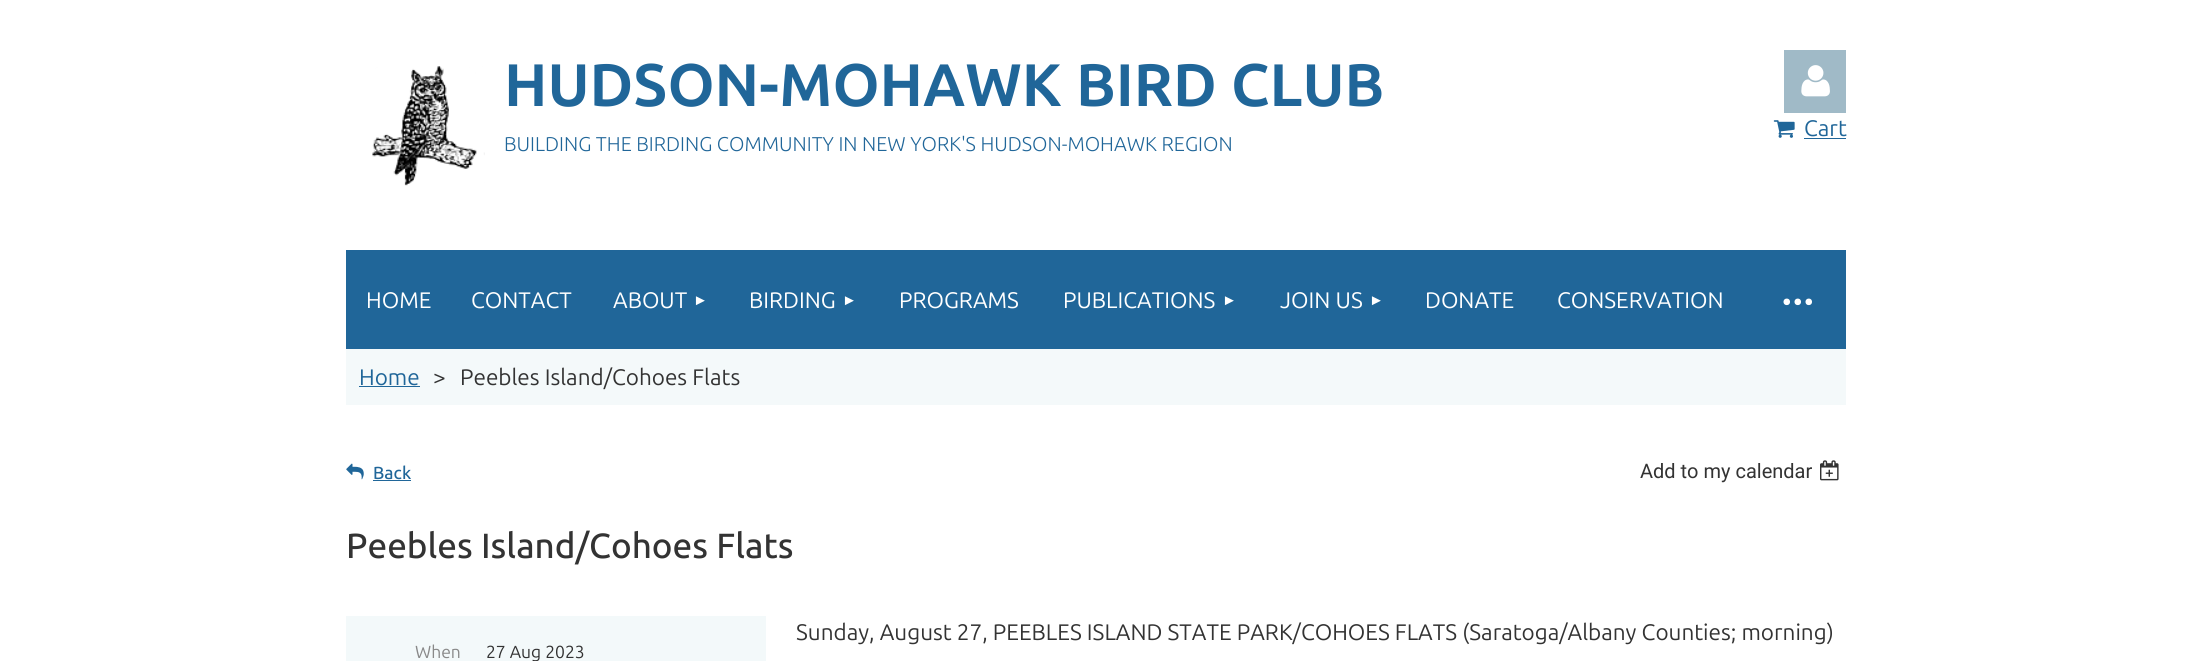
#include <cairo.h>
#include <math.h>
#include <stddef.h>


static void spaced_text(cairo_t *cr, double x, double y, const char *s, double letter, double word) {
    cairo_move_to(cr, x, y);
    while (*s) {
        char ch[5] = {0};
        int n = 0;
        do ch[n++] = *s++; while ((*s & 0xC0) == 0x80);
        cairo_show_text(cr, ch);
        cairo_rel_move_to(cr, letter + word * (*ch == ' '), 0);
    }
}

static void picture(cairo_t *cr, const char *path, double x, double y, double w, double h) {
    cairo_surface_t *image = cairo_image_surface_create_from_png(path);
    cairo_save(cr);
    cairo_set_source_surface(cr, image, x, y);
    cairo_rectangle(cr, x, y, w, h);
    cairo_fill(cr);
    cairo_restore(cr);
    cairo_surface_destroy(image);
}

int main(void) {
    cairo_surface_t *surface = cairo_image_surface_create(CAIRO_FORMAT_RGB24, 2192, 661);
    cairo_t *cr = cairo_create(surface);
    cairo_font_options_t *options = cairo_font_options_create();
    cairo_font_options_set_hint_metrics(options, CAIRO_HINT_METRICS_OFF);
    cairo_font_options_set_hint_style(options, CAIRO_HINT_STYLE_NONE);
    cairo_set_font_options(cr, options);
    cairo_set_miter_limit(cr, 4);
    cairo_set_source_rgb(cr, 1, 1, 1);
    cairo_paint(cr);
    picture(cr, "img1.png", 372, 66, 113, 120);
    cairo_select_font_face(cr, "Ubuntu", CAIRO_FONT_SLANT_NORMAL, CAIRO_FONT_WEIGHT_BOLD);
    cairo_set_font_size(cr, 60);
    cairo_set_source_rgb(cr, 0.125, 0.4, 0.6);
    cairo_move_to(cr, 504, 106);
    cairo_show_text(cr, "HUDSON-MOHAWK BIRD CLUB");
    cairo_select_font_face(cr, "Ubuntu Light", CAIRO_FONT_SLANT_NORMAL, CAIRO_FONT_WEIGHT_NORMAL);
    cairo_set_font_size(cr, 20);
    cairo_move_to(cr, 504, 151);
    cairo_show_text(cr, "BUILDING THE BIRDING COMMUNITY IN NEW YORK'S HUDSON-MOHAWK REGION");
    cairo_set_source_rgb(cr, 0.627, 0.729, 0.78);
    cairo_rectangle(cr, 1784, 50, 62, 63);
    cairo_fill(cr);
    picture(cr, "img2.png", 1801, 65, 29, 32);
    picture(cr, "img3.png", 1773, 120, 22, 18);
    cairo_select_font_face(cr, "Ubuntu", CAIRO_FONT_SLANT_NORMAL, CAIRO_FONT_WEIGHT_NORMAL);
    cairo_set_font_size(cr, 22.5);
    cairo_set_source_rgb(cr, 0.125, 0.4, 0.6);
    cairo_move_to(cr, 1804, 136);
    cairo_show_text(cr, "Cart");
    cairo_rectangle(cr, 1804, 138, 42, 1);
    cairo_fill(cr);
    cairo_set_source_rgb(cr, 0.957, 0.973, 0.98);
    cairo_rectangle(cr, 346, 349, 1500, 56);
    cairo_fill(cr);
    cairo_set_source_rgb(cr, 0.125, 0.4, 0.6);
    cairo_rectangle(cr, 346, 250, 1500, 99);
    cairo_fill(cr);
    cairo_set_source_rgb(cr, 1, 1, 1);
    cairo_move_to(cr, 366, 308);
    cairo_show_text(cr, "HOME");
    cairo_move_to(cr, 471, 308);
    cairo_show_text(cr, "CONTACT");
    cairo_move_to(cr, 613, 308);
    cairo_show_text(cr, "ABOUT");
    cairo_select_font_face(cr, "Liberation Sans", CAIRO_FONT_SLANT_NORMAL, CAIRO_FONT_WEIGHT_NORMAL);
    cairo_set_font_size(cr, 15);
    cairo_move_to(cr, 693, 305);
    cairo_show_text(cr, "►");
    cairo_select_font_face(cr, "Ubuntu", CAIRO_FONT_SLANT_NORMAL, CAIRO_FONT_WEIGHT_NORMAL);
    cairo_set_font_size(cr, 22.5);
    cairo_move_to(cr, 749, 308);
    cairo_show_text(cr, "BIRDING");
    cairo_select_font_face(cr, "Liberation Sans", CAIRO_FONT_SLANT_NORMAL, CAIRO_FONT_WEIGHT_NORMAL);
    cairo_set_font_size(cr, 15);
    cairo_move_to(cr, 842, 305);
    cairo_show_text(cr, "►");
    cairo_select_font_face(cr, "Ubuntu", CAIRO_FONT_SLANT_NORMAL, CAIRO_FONT_WEIGHT_NORMAL);
    cairo_set_font_size(cr, 22.5);
    cairo_move_to(cr, 899, 308);
    cairo_show_text(cr, "PROGRAMS");
    cairo_move_to(cr, 1063, 308);
    cairo_show_text(cr, "PUBLICATIONS");
    cairo_select_font_face(cr, "Liberation Sans", CAIRO_FONT_SLANT_NORMAL, CAIRO_FONT_WEIGHT_NORMAL);
    cairo_set_font_size(cr, 15);
    cairo_move_to(cr, 1222, 305);
    cairo_show_text(cr, "►");
    cairo_select_font_face(cr, "Ubuntu", CAIRO_FONT_SLANT_NORMAL, CAIRO_FONT_WEIGHT_NORMAL);
    cairo_set_font_size(cr, 22.5);
    cairo_move_to(cr, 1280, 308);
    cairo_show_text(cr, "JOIN US");
    cairo_select_font_face(cr, "Liberation Sans", CAIRO_FONT_SLANT_NORMAL, CAIRO_FONT_WEIGHT_NORMAL);
    cairo_set_font_size(cr, 15);
    cairo_move_to(cr, 1369, 305);
    cairo_show_text(cr, "►");
    cairo_select_font_face(cr, "Ubuntu", CAIRO_FONT_SLANT_NORMAL, CAIRO_FONT_WEIGHT_NORMAL);
    cairo_set_font_size(cr, 22.5);
    cairo_move_to(cr, 1425, 308);
    cairo_show_text(cr, "DONATE");
    cairo_move_to(cr, 1557, 308);
    cairo_show_text(cr, "CONSERVATION");
    cairo_set_font_size(cr, 55);
    spaced_text(cr, 1780, 318, "···", -2.5, 0);
    cairo_set_font_size(cr, 22.5);
    cairo_set_source_rgb(cr, 0.125, 0.4, 0.6);
    cairo_move_to(cr, 359, 385);
    cairo_show_text(cr, "Home");
    cairo_rectangle(cr, 359, 386, 61, 1);
    cairo_fill(cr);
    cairo_set_source_rgb(cr, 0.2, 0.2, 0.2);
    cairo_move_to(cr, 433, 385);
    cairo_show_text(cr, ">");
    cairo_move_to(cr, 460, 385);
    cairo_show_text(cr, "Peebles Island/Cohoes Flats");
    picture(cr, "img4.png", 346, 463, 18, 17);
    cairo_select_font_face(cr, "Ubuntu Medium", CAIRO_FONT_SLANT_NORMAL, CAIRO_FONT_WEIGHT_NORMAL);
    cairo_set_font_size(cr, 17.5);
    cairo_set_source_rgb(cr, 0.125, 0.4, 0.6);
    cairo_move_to(cr, 373, 479);
    cairo_show_text(cr, "Back");
    cairo_rectangle(cr, 373, 480, 38, 1);
    cairo_fill(cr);
    cairo_select_font_face(cr, "Roboto", CAIRO_FONT_SLANT_NORMAL, CAIRO_FONT_WEIGHT_NORMAL);
    cairo_set_font_size(cr, 20);
    cairo_set_source_rgb(cr, 0.2, 0.2, 0.2);
    cairo_move_to(cr, 1640, 478);
    cairo_show_text(cr, "Add to my calendar");
    picture(cr, "img5.png", 1820, 460, 19, 21);
    cairo_select_font_face(cr, "Ubuntu Medium", CAIRO_FONT_SLANT_NORMAL, CAIRO_FONT_WEIGHT_NORMAL);
    cairo_set_font_size(cr, 35);
    cairo_move_to(cr, 346, 558);
    cairo_show_text(cr, "Peebles Island/Cohoes Flats");
    cairo_select_font_face(cr, "Ubuntu", CAIRO_FONT_SLANT_NORMAL, CAIRO_FONT_WEIGHT_NORMAL);
    cairo_set_font_size(cr, 22.5);
    cairo_move_to(cr, 796, 640);
    cairo_show_text(cr, "Sunday, August 27, PEEBLES ISLAND STATE PARK/COHOES FLATS (Saratoga/Albany Counties; morning)");
    cairo_set_source_rgb(cr, 0.953, 0.973, 0.98);
    cairo_rectangle(cr, 346, 616, 420, 45);
    cairo_fill(cr);
    cairo_set_font_size(cr, 17.5);
    cairo_set_source_rgb(cr, 0.537, 0.537, 0.537);
    cairo_move_to(cr, 415, 658);
    cairo_show_text(cr, "When");
    cairo_set_source_rgb(cr, 0.2, 0.2, 0.2);
    cairo_move_to(cr, 486, 658);
    cairo_show_text(cr, "27 Aug 2023");
    cairo_surface_write_to_png(surface, "page.png");
    cairo_font_options_destroy(options);
    cairo_destroy(cr);
    cairo_surface_destroy(surface);
    return 0;
}
